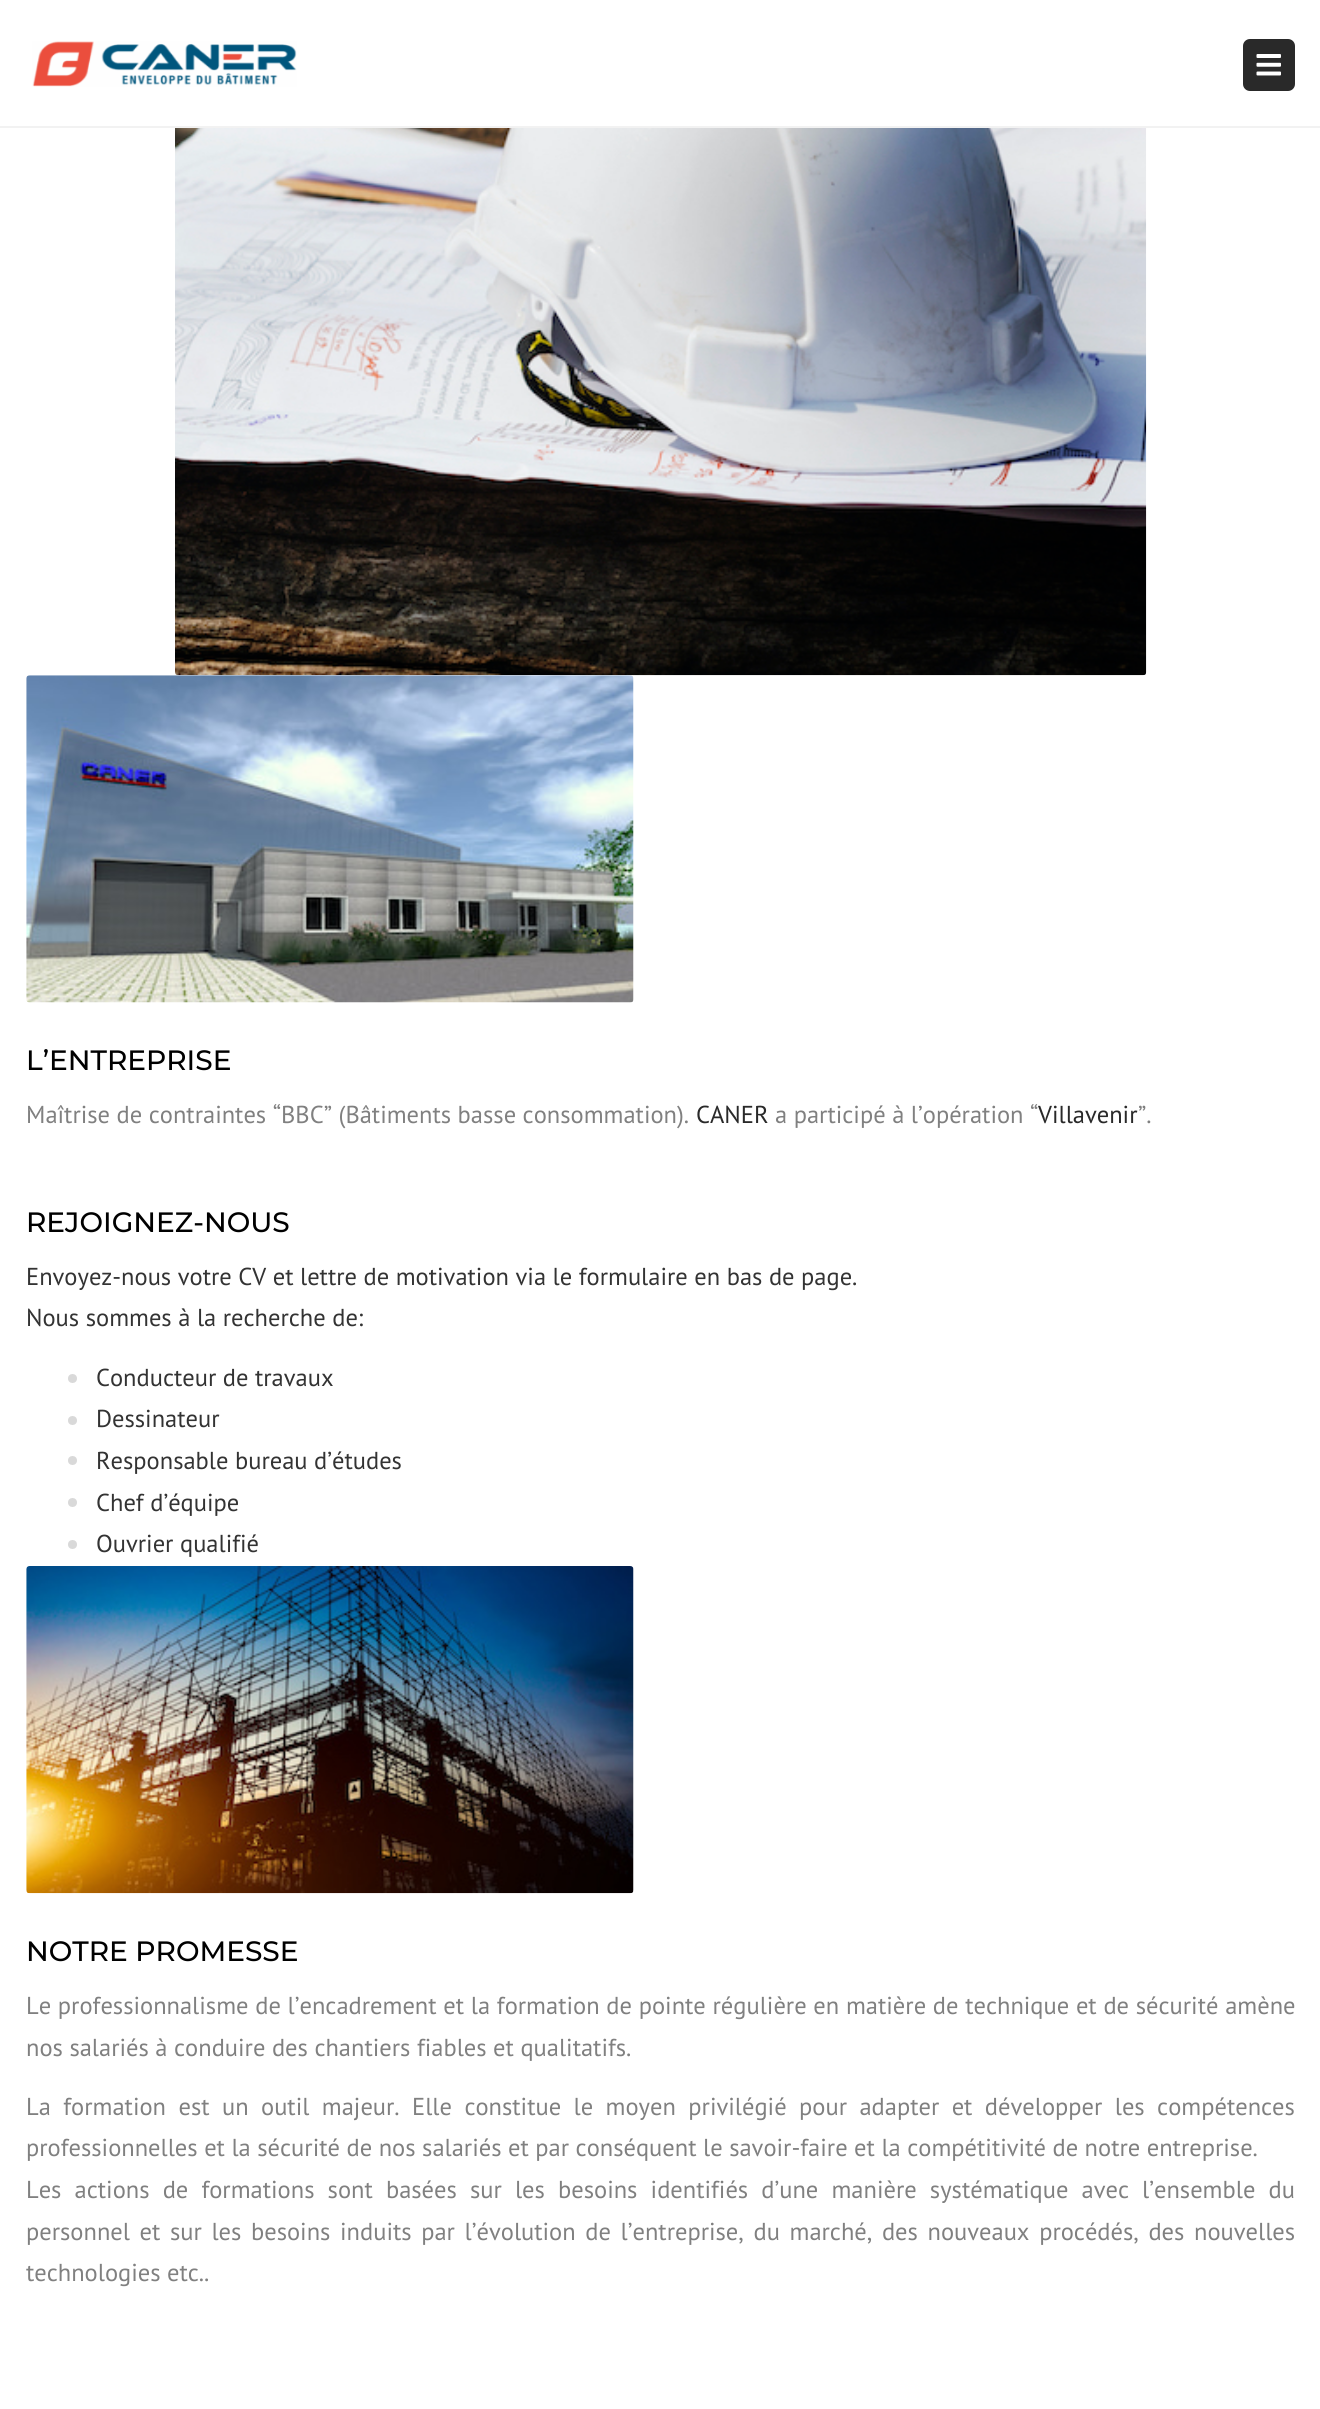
#include <cairo.h>
#include <math.h>
#include <stddef.h>


static void spaced_text(cairo_t *cr, double x, double y, const char *s, double letter, double word) {
    cairo_move_to(cr, x, y);
    while (*s) {
        char ch[5] = {0};
        int n = 0;
        do ch[n++] = *s++; while ((*s & 0xC0) == 0x80);
        cairo_show_text(cr, ch);
        cairo_rel_move_to(cr, letter + word * (*ch == ' '), 0);
    }
}

static void round_rect(cairo_t *cr, double x, double y, double w, double h, double r) {
    cairo_new_sub_path(cr);
    cairo_arc(cr, x + w - r, y + h - r, r, 0, M_PI / 2);
    cairo_arc(cr, x + r, y + h - r, r, M_PI / 2, M_PI);
    cairo_arc(cr, x + r, y + r, r, M_PI, 1.5 * M_PI);
    cairo_arc(cr, x + w - r, y + r, r, 1.5 * M_PI, 2 * M_PI);
    cairo_close_path(cr);
}

static void picture(cairo_t *cr, const char *path, double x, double y, double w, double h) {
    cairo_surface_t *image = cairo_image_surface_create_from_png(path);
    cairo_save(cr);
    cairo_set_source_surface(cr, image, x, y);
    cairo_rectangle(cr, x, y, w, h);
    cairo_fill(cr);
    cairo_restore(cr);
    cairo_surface_destroy(image);
}

int main(void) {
    cairo_surface_t *surface = cairo_image_surface_create(CAIRO_FORMAT_RGB24, 1320, 2409);
    cairo_t *cr = cairo_create(surface);
    cairo_font_options_t *options = cairo_font_options_create();
    cairo_font_options_set_hint_metrics(options, CAIRO_HINT_METRICS_OFF);
    cairo_font_options_set_hint_style(options, CAIRO_HINT_STYLE_NONE);
    cairo_set_font_options(cr, options);
    cairo_set_miter_limit(cr, 4);
    cairo_set_source_rgb(cr, 1, 1, 1);
    cairo_paint(cr);
    cairo_set_source_rgb(cr, 0.949, 0.949, 0.949);
    cairo_rectangle(cr, 0, 126, 1320, 2);
    cairo_fill(cr);
    cairo_set_source_rgb(cr, 0.161, 0.161, 0.161);
    round_rect(cr, 1243, 39, 52, 52, 7);
    cairo_fill(cr);
    picture(cr, "img1.png", 1256, 54, 25, 22);
    picture(cr, "img2.png", 32, 41, 265, 46);
    picture(cr, "img3.png", 175, 128, 972, 548);
    picture(cr, "img4.png", 26, 675, 608, 328);
    cairo_select_font_face(cr, "Montserrat Medium", CAIRO_FONT_SLANT_NORMAL, CAIRO_FONT_WEIGHT_NORMAL);
    cairo_set_font_size(cr, 28);
    cairo_set_source_rgb(cr, 0, 0, 0);
    cairo_move_to(cr, 26, 1070);
    cairo_show_text(cr, "L’ENTREPRISE");
    cairo_select_font_face(cr, "PT Sans", CAIRO_FONT_SLANT_NORMAL, CAIRO_FONT_WEIGHT_NORMAL);
    cairo_set_font_size(cr, 24.5);
    cairo_set_source_rgb(cr, 0.502, 0.502, 0.502);
    cairo_move_to(cr, 26, 1123);
    cairo_show_text(cr, "Maîtrise de contraintes “BBC” (Bâtiments basse consommation).");
    cairo_set_source_rgb(cr, 0.161, 0.161, 0.161);
    cairo_move_to(cr, 696, 1123);
    cairo_show_text(cr, "CANER");
    cairo_set_source_rgb(cr, 0.502, 0.502, 0.502);
    cairo_move_to(cr, 775, 1123);
    cairo_show_text(cr, "a participé à l’opération “");
    cairo_set_source_rgb(cr, 0.161, 0.161, 0.161);
    cairo_move_to(cr, 1038, 1123);
    cairo_show_text(cr, "Villavenir");
    cairo_set_source_rgb(cr, 0.502, 0.502, 0.502);
    cairo_move_to(cr, 1138, 1123);
    cairo_show_text(cr, "”.");
    cairo_select_font_face(cr, "Montserrat Medium", CAIRO_FONT_SLANT_NORMAL, CAIRO_FONT_WEIGHT_NORMAL);
    cairo_set_font_size(cr, 28);
    cairo_set_source_rgb(cr, 0, 0, 0);
    cairo_move_to(cr, 26, 1232);
    cairo_show_text(cr, "REJOIGNEZ-NOUS");
    cairo_select_font_face(cr, "PT Sans", CAIRO_FONT_SLANT_NORMAL, CAIRO_FONT_WEIGHT_NORMAL);
    cairo_set_font_size(cr, 24.5);
    cairo_set_source_rgb(cr, 0.2, 0.2, 0.2);
    cairo_move_to(cr, 26, 1285);
    cairo_show_text(cr, "Envoyez-nous votre CV et lettre de motivation via le formulaire en bas de page.");
    cairo_move_to(cr, 26, 1326);
    cairo_show_text(cr, "Nous sommes à la recherche de:");
    cairo_set_source_rgb(cr, 0.851, 0.851, 0.851);
    cairo_new_path(cr);
    cairo_arc(cr, 72.5, 1378.5, 4.5, 0, 2 * M_PI);
    cairo_fill(cr);
    cairo_set_source_rgb(cr, 0.2, 0.2, 0.2);
    cairo_move_to(cr, 96, 1386);
    cairo_show_text(cr, "Conducteur de travaux");
    cairo_set_source_rgb(cr, 0.851, 0.851, 0.851);
    cairo_new_path(cr);
    cairo_arc(cr, 72.5, 1420.5, 4.5, 0, 2 * M_PI);
    cairo_fill(cr);
    cairo_set_source_rgb(cr, 0.2, 0.2, 0.2);
    cairo_move_to(cr, 96, 1427);
    cairo_show_text(cr, "Dessinateur");
    cairo_set_source_rgb(cr, 0.851, 0.851, 0.851);
    cairo_new_path(cr);
    cairo_arc(cr, 72.5, 1460.5, 4.5, 0, 2 * M_PI);
    cairo_fill(cr);
    cairo_set_source_rgb(cr, 0.2, 0.2, 0.2);
    cairo_move_to(cr, 96, 1469);
    cairo_show_text(cr, "Responsable bureau d’études");
    cairo_set_source_rgb(cr, 0.851, 0.851, 0.851);
    cairo_new_path(cr);
    cairo_arc(cr, 72.5, 1502.5, 4.5, 0, 2 * M_PI);
    cairo_fill(cr);
    cairo_set_source_rgb(cr, 0.2, 0.2, 0.2);
    cairo_move_to(cr, 96, 1511);
    cairo_show_text(cr, "Chef d’équipe");
    cairo_set_source_rgb(cr, 0.851, 0.851, 0.851);
    cairo_new_path(cr);
    cairo_arc(cr, 72.5, 1544.5, 4.5, 0, 2 * M_PI);
    cairo_fill(cr);
    cairo_set_source_rgb(cr, 0.2, 0.2, 0.2);
    cairo_move_to(cr, 96, 1552);
    cairo_show_text(cr, "Ouvrier qualifié");
    picture(cr, "img5.png", 26, 1566, 608, 328);
    cairo_select_font_face(cr, "Montserrat Medium", CAIRO_FONT_SLANT_NORMAL, CAIRO_FONT_WEIGHT_NORMAL);
    cairo_set_font_size(cr, 28);
    cairo_set_source_rgb(cr, 0, 0, 0);
    cairo_move_to(cr, 26, 1961);
    cairo_show_text(cr, "NOTRE PROMESSE");
    cairo_select_font_face(cr, "PT Sans", CAIRO_FONT_SLANT_NORMAL, CAIRO_FONT_WEIGHT_NORMAL);
    cairo_set_font_size(cr, 24.5);
    cairo_set_source_rgb(cr, 0.502, 0.502, 0.502);
    spaced_text(cr, 26, 2014, "Le professionnalisme de l’encadrement et la formation de pointe régulière en matière de technique et de sécurité amène", 0, 0.2);
    cairo_move_to(cr, 26, 2056);
    cairo_show_text(cr, "nos salariés à conduire des chantiers fiables et qualitatifs.");
    spaced_text(cr, 26, 2115, "La formation est un outil majeur. Elle constitue le moyen privilégié pour adapter et développer les compétences", 0, 5.9);
    cairo_move_to(cr, 26, 2156);
    cairo_show_text(cr, "professionnelles et la sécurité de nos salariés et par conséquent le savoir-faire et la compétitivité de notre entreprise.");
    spaced_text(cr, 26, 2198, "Les actions de formations sont basées sur les besoins identifiés d’une manière systématique avec l’ensemble du", 0, 6.6);
    spaced_text(cr, 26, 2240, "personnel et sur les besoins induits par l’évolution de l’entreprise, du marché, des nouveaux procédés, des nouvelles", 0, 3.1);
    cairo_move_to(cr, 26, 2281);
    cairo_show_text(cr, "technologies etc..");
    cairo_surface_write_to_png(surface, "page.png");
    cairo_font_options_destroy(options);
    cairo_destroy(cr);
    cairo_surface_destroy(surface);
    return 0;
}
